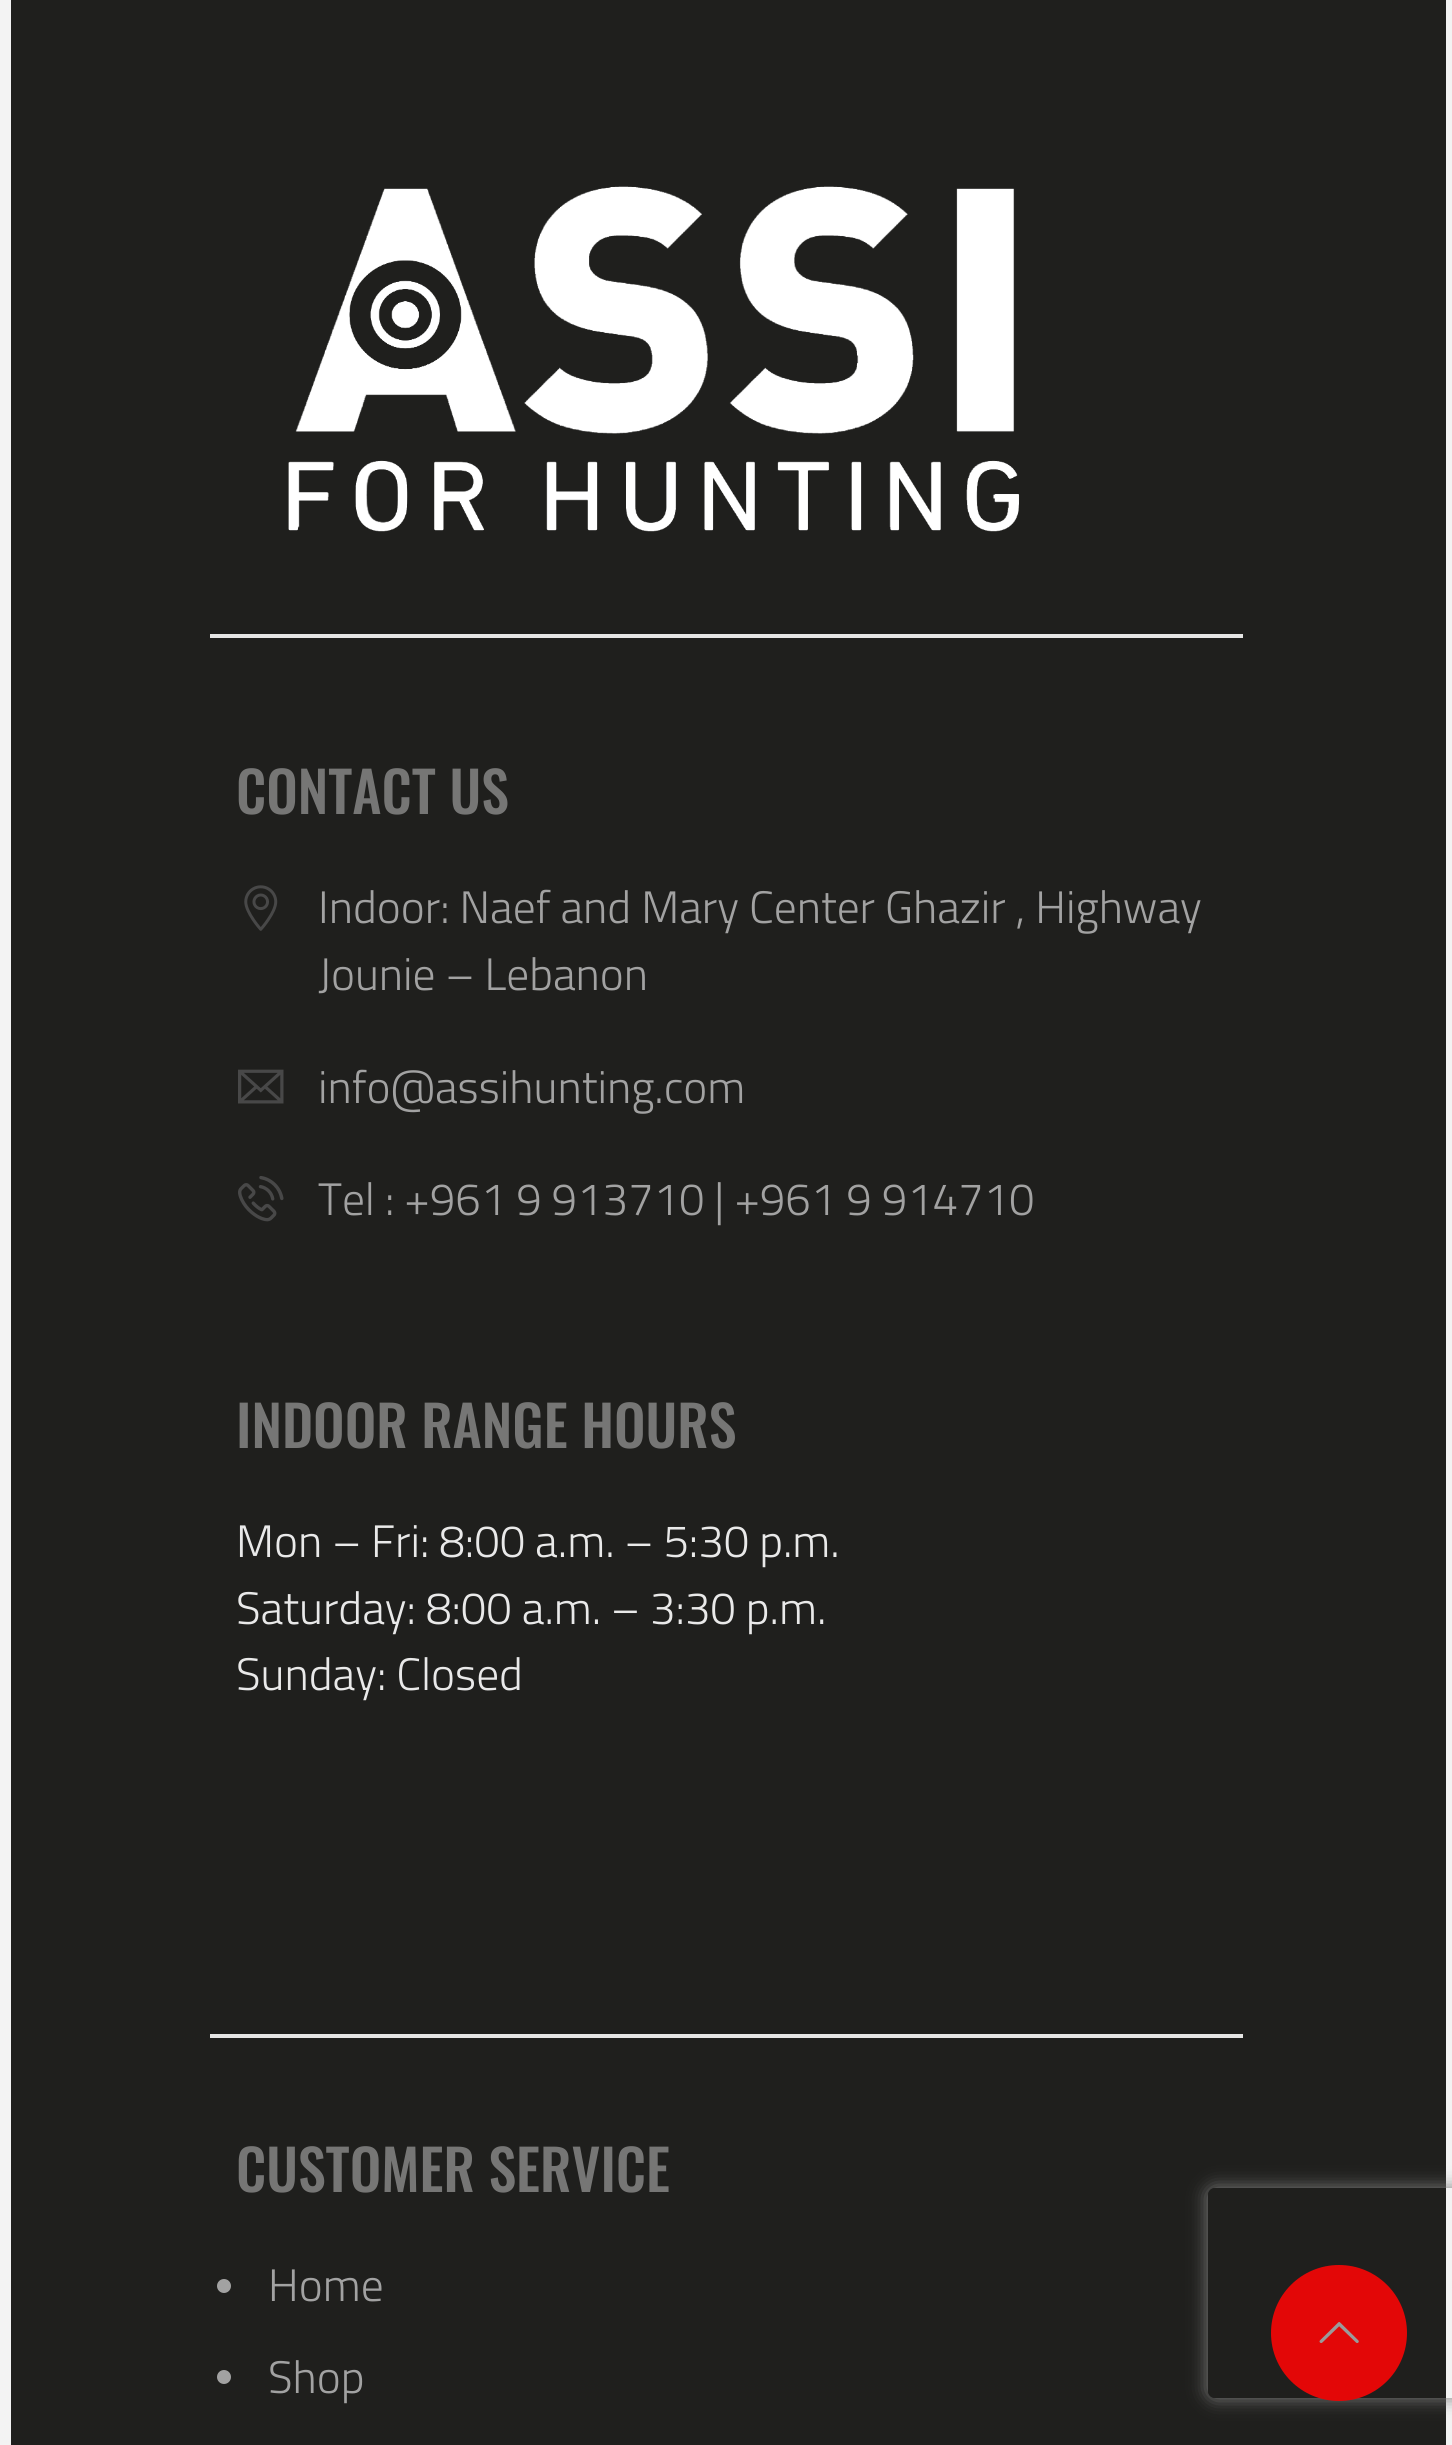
#include <cairo.h>
#include <math.h>
#include <stddef.h>

typedef struct { double x, y; const char *s; } line_t;

static void ink(cairo_t *ctx, unsigned color) {
    cairo_set_source_rgb(ctx, (color >> 16) / 255.0, (color >> 8 & 255) / 255.0, (color & 255) / 255.0);
}

static void round_path(cairo_t *ctx, double x, double y, double w, double h, double r) {
    cairo_new_sub_path(ctx);
    cairo_arc(ctx, x + w - r, y + h - r, r, 0, M_PI / 2);
    cairo_arc(ctx, x + r, y + h - r, r, M_PI / 2, M_PI);
    cairo_arc(ctx, x + r, y + r, r, M_PI, 1.5 * M_PI);
    cairo_arc(ctx, x + w - r, y + r, r, 1.5 * M_PI, 2 * M_PI);
    cairo_close_path(ctx);
}

static void blur_box(cairo_t *ctx, double x, double y, double w, double h, double r, double blur, double alpha) {
    cairo_push_group_with_content(ctx, CAIRO_CONTENT_ALPHA);
    cairo_set_operator(ctx, CAIRO_OPERATOR_SOURCE);
    for (int i = 15; i >= -15 && fmin(w, h) + blur * i / 3 > 0; i -= 2) {
        double e = blur * i / 6;
        cairo_set_source_rgba(ctx, 0, 0, 0, alpha * erfc((i - 1) / 8.5) / 2);
        round_path(ctx, x - e, y - e, w + 2 * e, h + 2 * e, fmax(0, fmin(r + e + blur * .6, fmin(w, h) / 2 + e)));
        cairo_fill(ctx);
    }
    cairo_pattern_t *soft = cairo_pop_group(ctx);
    cairo_mask(ctx, soft);
    cairo_pattern_destroy(soft);
}

static void paste(cairo_t *ctx, const char *path, double x, double y, double w, double h) {
    cairo_surface_t *image = cairo_image_surface_create_from_png(path);
    cairo_save(ctx);
    cairo_set_source_surface(ctx, image, x, y);
    cairo_rectangle(ctx, x, y, w, h);
    cairo_fill(ctx);
    cairo_restore(ctx);
    cairo_surface_destroy(image);
}

int main(void) {
    cairo_surface_t *surface = cairo_image_surface_create(CAIRO_FORMAT_RGB24, 1452, 2445);
    cairo_t *ctx = cairo_create(surface);
    cairo_font_options_t *options = cairo_font_options_create();
    cairo_font_options_set_hint_metrics(options, CAIRO_HINT_METRICS_OFF);
    cairo_font_options_set_hint_style(options, CAIRO_HINT_STYLE_NONE);
    cairo_set_font_options(ctx, options);
    cairo_set_miter_limit(ctx, 4);
    ink(ctx, 0xF3F3F3);
    cairo_paint(ctx);
    ink(ctx, 0x1F1F1D);
    cairo_rectangle(ctx, 11, 0, 1435, 2445);
    cairo_fill(ctx);
    paste(ctx, "media/1.png", 288, 186, 732, 346);
    ink(ctx, 0xE5E5E5);
    cairo_rectangle(ctx, 210, 634, 1033, 4);
    cairo_fill(ctx);
    cairo_select_font_face(ctx, "Oswald Medium", CAIRO_FONT_SLANT_NORMAL, CAIRO_FONT_WEIGHT_NORMAL);
    cairo_set_font_size(ctx, 56);
    ink(ctx, 0x767675);
    cairo_move_to(ctx, 236, 814);
    cairo_show_text(ctx, "CONTACT US");
    paste(ctx, "media/2.png", 244, 885, 34, 46);
    cairo_select_font_face(ctx, "Titillium Web Light", CAIRO_FONT_SLANT_NORMAL, CAIRO_FONT_WEIGHT_NORMAL);
    cairo_set_font_size(ctx, 45.5);
    ink(ctx, 0xA2A2A2);
    cairo_move_to(ctx, 318, 923);
    cairo_show_text(ctx, "Indoor: Naef and Mary Center Ghazir , Highway");
    cairo_move_to(ctx, 318, 990);
    cairo_show_text(ctx, "Jounie – Lebanon");
    paste(ctx, "media/3.png", 238, 1069, 46, 35);
    cairo_move_to(ctx, 318, 1103);
    cairo_show_text(ctx, "info@assihunting.com");
    paste(ctx, "media/4.png", 238, 1176, 46, 46);
    cairo_move_to(ctx, 318, 1215);
    cairo_show_text(ctx, "Tel : +961 9 913710 | +961 9 914710");
    cairo_select_font_face(ctx, "Oswald Medium", CAIRO_FONT_SLANT_NORMAL, CAIRO_FONT_WEIGHT_NORMAL);
    cairo_set_font_size(ctx, 56);
    ink(ctx, 0x767675);
    cairo_move_to(ctx, 236, 1448);
    cairo_show_text(ctx, "INDOOR RANGE HOURS");
    cairo_select_font_face(ctx, "Titillium Web Light", CAIRO_FONT_SLANT_NORMAL, CAIRO_FONT_WEIGHT_NORMAL);
    cairo_set_font_size(ctx, 45.5);
    ink(ctx, 0xE9E9E9);
    {
        static const line_t items[] = {
            {236, 1557, "Mon – Fri: 8:00 a.m. – 5:30 p.m."},
            {236, 1624, "Saturday: 8:00 a.m. – 3:30 p.m."},
            {236, 1690, "Sunday: Closed"},
        };
        for (size_t i = 0; i < sizeof items / sizeof *items; i++) {
            cairo_move_to(ctx, items[i].x, items[i].y);
            cairo_show_text(ctx, items[i].s);
        }
    }
    ink(ctx, 0xE5E5E5);
    cairo_rectangle(ctx, 210, 2034, 1033, 4);
    cairo_fill(ctx);
    cairo_select_font_face(ctx, "Oswald Medium", CAIRO_FONT_SLANT_NORMAL, CAIRO_FONT_WEIGHT_NORMAL);
    cairo_set_font_size(ctx, 56);
    ink(ctx, 0x767675);
    cairo_move_to(ctx, 236, 2192);
    cairo_show_text(ctx, "CUSTOMER SERVICE");
    ink(ctx, 0xA2A2A2);
    cairo_new_path(ctx);
    cairo_arc(ctx, 224, 2286, 7, 0, 2 * M_PI);
    cairo_fill(ctx);
    cairo_select_font_face(ctx, "Titillium Web Light", CAIRO_FONT_SLANT_NORMAL, CAIRO_FONT_WEIGHT_NORMAL);
    cairo_set_font_size(ctx, 45.5);
    cairo_move_to(ctx, 268, 2301);
    cairo_show_text(ctx, "Home");
    cairo_new_path(ctx);
    cairo_arc(ctx, 224, 2377, 7, 0, 2 * M_PI);
    cairo_fill(ctx);
    cairo_move_to(ctx, 268, 2393);
    cairo_show_text(ctx, "Shop");
    cairo_save(ctx);
    cairo_set_fill_rule(ctx, CAIRO_FILL_RULE_EVEN_ODD);
    cairo_new_path(ctx);
    cairo_move_to(ctx, 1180, 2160);
    cairo_line_to(ctx, 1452, 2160);
    cairo_line_to(ctx, 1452, 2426);
    cairo_line_to(ctx, 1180, 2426);
    cairo_close_path(ctx);
    cairo_move_to(ctx, 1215, 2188);
    cairo_line_to(ctx, 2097, 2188);
    cairo_curve_to(ctx, 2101, 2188, 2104, 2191, 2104, 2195);
    cairo_line_to(ctx, 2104, 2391);
    cairo_curve_to(ctx, 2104, 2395, 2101, 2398, 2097, 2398);
    cairo_line_to(ctx, 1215, 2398);
    cairo_curve_to(ctx, 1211, 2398, 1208, 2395, 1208, 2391);
    cairo_line_to(ctx, 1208, 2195);
    cairo_curve_to(ctx, 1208, 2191, 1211, 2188, 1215, 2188);
    cairo_close_path(ctx);
    cairo_clip(ctx);
    ink(ctx, 0x808080);
    blur_box(ctx, 1208, 2188, 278, 210, 7, 9, 1);
    cairo_restore(ctx);
    ink(ctx, 0xE30707);
    cairo_arc(ctx, 1339, 2333, 68, 0, 2 * M_PI);
    cairo_fill(ctx);
    paste(ctx, "media/5.png", 1319, 2322, 40, 21);
    cairo_surface_write_to_png(surface, "image.png");
    cairo_font_options_destroy(options);
    cairo_destroy(ctx);
    cairo_surface_destroy(surface);
    return 0;
}
